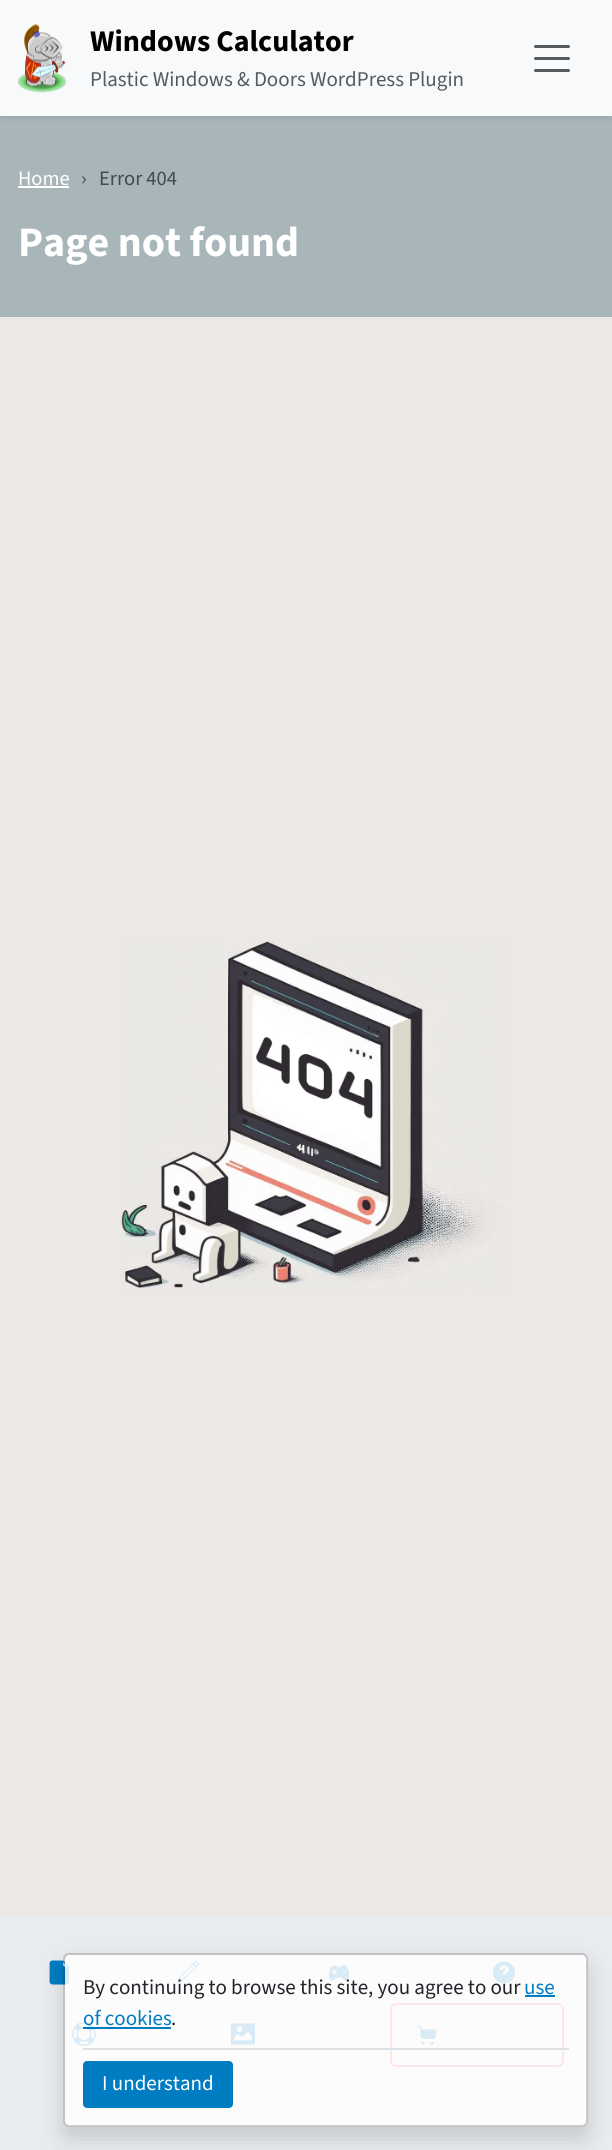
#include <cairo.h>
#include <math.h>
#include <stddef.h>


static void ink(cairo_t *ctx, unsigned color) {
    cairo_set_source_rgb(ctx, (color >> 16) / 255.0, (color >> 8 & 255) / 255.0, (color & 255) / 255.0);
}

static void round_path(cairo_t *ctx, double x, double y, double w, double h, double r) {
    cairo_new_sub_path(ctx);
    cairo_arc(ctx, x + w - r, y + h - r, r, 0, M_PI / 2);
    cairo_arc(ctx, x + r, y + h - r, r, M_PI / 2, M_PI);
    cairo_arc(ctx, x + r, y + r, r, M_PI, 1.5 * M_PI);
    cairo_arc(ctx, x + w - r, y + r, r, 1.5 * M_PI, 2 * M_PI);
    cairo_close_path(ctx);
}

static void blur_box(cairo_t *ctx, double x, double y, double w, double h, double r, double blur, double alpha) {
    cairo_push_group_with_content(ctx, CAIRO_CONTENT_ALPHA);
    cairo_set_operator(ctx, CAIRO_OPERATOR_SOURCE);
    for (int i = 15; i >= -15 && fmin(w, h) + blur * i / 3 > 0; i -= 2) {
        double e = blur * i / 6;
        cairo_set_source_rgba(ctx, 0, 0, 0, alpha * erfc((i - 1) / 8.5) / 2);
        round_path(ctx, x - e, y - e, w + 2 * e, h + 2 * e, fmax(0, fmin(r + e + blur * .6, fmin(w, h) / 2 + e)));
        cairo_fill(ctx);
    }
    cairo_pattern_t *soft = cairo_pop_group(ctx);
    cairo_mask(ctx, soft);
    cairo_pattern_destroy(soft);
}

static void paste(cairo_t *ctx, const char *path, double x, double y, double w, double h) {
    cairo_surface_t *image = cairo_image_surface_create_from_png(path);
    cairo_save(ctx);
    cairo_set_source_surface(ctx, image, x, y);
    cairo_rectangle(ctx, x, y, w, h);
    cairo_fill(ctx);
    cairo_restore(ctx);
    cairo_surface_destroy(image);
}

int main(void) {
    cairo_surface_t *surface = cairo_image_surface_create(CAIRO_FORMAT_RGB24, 612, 2150);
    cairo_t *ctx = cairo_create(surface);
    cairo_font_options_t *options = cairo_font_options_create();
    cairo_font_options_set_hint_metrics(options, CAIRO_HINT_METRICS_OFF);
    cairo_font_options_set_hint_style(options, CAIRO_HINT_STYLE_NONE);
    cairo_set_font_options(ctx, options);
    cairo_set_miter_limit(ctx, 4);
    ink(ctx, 0xA8B5B9);
    cairo_paint(ctx);
    ink(ctx, 0x000000);
    blur_box(ctx, 0, 3, 612, 116, 0, 3, 0.07);
    ink(ctx, 0xF8F9FA);
    cairo_rectangle(ctx, 0, 0, 612, 116);
    cairo_fill(ctx);
    paste(ctx, "media/1.png", 18, 24, 48, 69);
    cairo_select_font_face(ctx, "Source Sans 3", CAIRO_FONT_SLANT_NORMAL, CAIRO_FONT_WEIGHT_BOLD);
    cairo_set_font_size(ctx, 30);
    ink(ctx, 0x000000);
    cairo_move_to(ctx, 90, 51);
    cairo_show_text(ctx, "Windows Calculator");
    cairo_select_font_face(ctx, "Source Sans 3", CAIRO_FONT_SLANT_NORMAL, CAIRO_FONT_WEIGHT_NORMAL);
    cairo_set_font_size(ctx, 21);
    ink(ctx, 0x575A5D);
    cairo_move_to(ctx, 90, 86);
    cairo_show_text(ctx, "Plastic Windows & Doors WordPress Plugin");
    cairo_new_path(ctx);
    cairo_move_to(ctx, 535.5, 46.5);
    cairo_line_to(ctx, 568.5, 46.5);
    cairo_move_to(ctx, 535.5, 58.5);
    cairo_line_to(ctx, 568.5, 58.5);
    cairo_move_to(ctx, 535.5, 70.5);
    cairo_line_to(ctx, 568.5, 70.5);
    cairo_set_line_width(ctx, 3);
    cairo_set_line_cap(ctx, CAIRO_LINE_CAP_ROUND);
    cairo_stroke(ctx);
    cairo_set_font_size(ctx, 20.5);
    ink(ctx, 0xFFFFFF);
    cairo_move_to(ctx, 18, 185);
    cairo_show_text(ctx, "Home");
    cairo_rectangle(ctx, 18, 186, 51, 2);
    cairo_fill(ctx);
    ink(ctx, 0x43494D);
    cairo_move_to(ctx, 81, 185);
    cairo_show_text(ctx, "›");
    cairo_move_to(ctx, 99, 185);
    cairo_show_text(ctx, "Error 404");
    cairo_select_font_face(ctx, "Source Sans 3", CAIRO_FONT_SLANT_NORMAL, CAIRO_FONT_WEIGHT_BOLD);
    cairo_set_font_size(ctx, 42);
    ink(ctx, 0xFFFFFF);
    cairo_move_to(ctx, 18, 256);
    cairo_show_text(ctx, "Page not found");
    ink(ctx, 0xECE8E5);
    cairo_rectangle(ctx, 0, 317, 612, 1600);
    cairo_fill(ctx);
    paste(ctx, "media/2.png", 121, 941, 384, 348);
    ink(ctx, 0xE9ECEF);
    cairo_rectangle(ctx, 0, 1917, 612, 233);
    cairo_fill(ctx);
    paste(ctx, "media/3.png", 49, 1960, 21, 25);
    paste(ctx, "media/4.png", 176, 1961, 23, 23);
    paste(ctx, "media/5.png", 329, 1965, 20, 16);
    paste(ctx, "media/6.png", 493, 1961, 22, 23);
    paste(ctx, "media/7.png", 72, 2022, 24, 24);
    paste(ctx, "media/8.png", 231, 2023, 24, 22);
    round_path(ctx, 391, 2004, 172, 62, 5);
    ink(ctx, 0xFF5B5B);
    cairo_set_line_width(ctx, 2);
    cairo_set_line_cap(ctx, CAIRO_LINE_CAP_BUTT);
    cairo_stroke(ctx);
    paste(ctx, "media/9.png", 417, 2025, 20, 20);
    cairo_save(ctx);
    cairo_set_fill_rule(ctx, CAIRO_FILL_RULE_EVEN_ODD);
    cairo_new_path(ctx);
    cairo_move_to(ctx, 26, 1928);
    cairo_line_to(ctx, 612, 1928);
    cairo_line_to(ctx, 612, 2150);
    cairo_line_to(ctx, 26, 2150);
    cairo_close_path(ctx);
    cairo_move_to(ctx, 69, 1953);
    cairo_line_to(ctx, 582, 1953);
    cairo_curve_to(ctx, 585.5, 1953, 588, 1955.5, 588, 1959);
    cairo_line_to(ctx, 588, 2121);
    cairo_curve_to(ctx, 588, 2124.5, 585.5, 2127, 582, 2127);
    cairo_line_to(ctx, 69, 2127);
    cairo_curve_to(ctx, 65.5, 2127, 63, 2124.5, 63, 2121);
    cairo_line_to(ctx, 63, 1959);
    cairo_curve_to(ctx, 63, 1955.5, 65.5, 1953, 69, 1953);
    cairo_close_path(ctx);
    cairo_clip(ctx);
    ink(ctx, 0x000000);
    blur_box(ctx, 63, 1965, 525, 174, 6, 12, 0.15);
    cairo_restore(ctx);
    cairo_set_source_rgba(ctx, 1, 1, 1, 0.85);
    round_path(ctx, 65, 1955, 522, 171, 5);
    cairo_fill(ctx);
    round_path(ctx, 64, 1954, 523, 172, 5);
    cairo_set_source_rgba(ctx, 0, 0, 0, 0.18);
    cairo_stroke(ctx);
    cairo_select_font_face(ctx, "Source Sans 3", CAIRO_FONT_SLANT_NORMAL, CAIRO_FONT_WEIGHT_NORMAL);
    cairo_set_font_size(ctx, 21);
    ink(ctx, 0x212529);
    cairo_move_to(ctx, 83, 1994);
    cairo_show_text(ctx, "By continuing to browse this site, you agree to our");
    ink(ctx, 0x007CC2);
    cairo_move_to(ctx, 524, 1994);
    cairo_show_text(ctx, "use");
    cairo_rectangle(ctx, 525, 1995, 30, 2);
    cairo_fill(ctx);
    cairo_move_to(ctx, 83, 2025);
    cairo_show_text(ctx, "of cookies");
    cairo_rectangle(ctx, 83, 2027, 88, 2);
    cairo_fill(ctx);
    ink(ctx, 0x212529);
    cairo_move_to(ctx, 171, 2025);
    cairo_show_text(ctx, ".");
    ink(ctx, 0xDEE2E6);
    cairo_rectangle(ctx, 83, 2048, 486, 2);
    cairo_fill(ctx);
    ink(ctx, 0x007CC2);
    round_path(ctx, 84, 2062, 148, 45, 3);
    cairo_fill_preserve(ctx);
    cairo_stroke(ctx);
    ink(ctx, 0xFFFFFF);
    cairo_move_to(ctx, 102, 2090);
    cairo_show_text(ctx, "I understand");
    cairo_surface_write_to_png(surface, "image.png");
    cairo_font_options_destroy(options);
    cairo_destroy(ctx);
    cairo_surface_destroy(surface);
    return 0;
}
